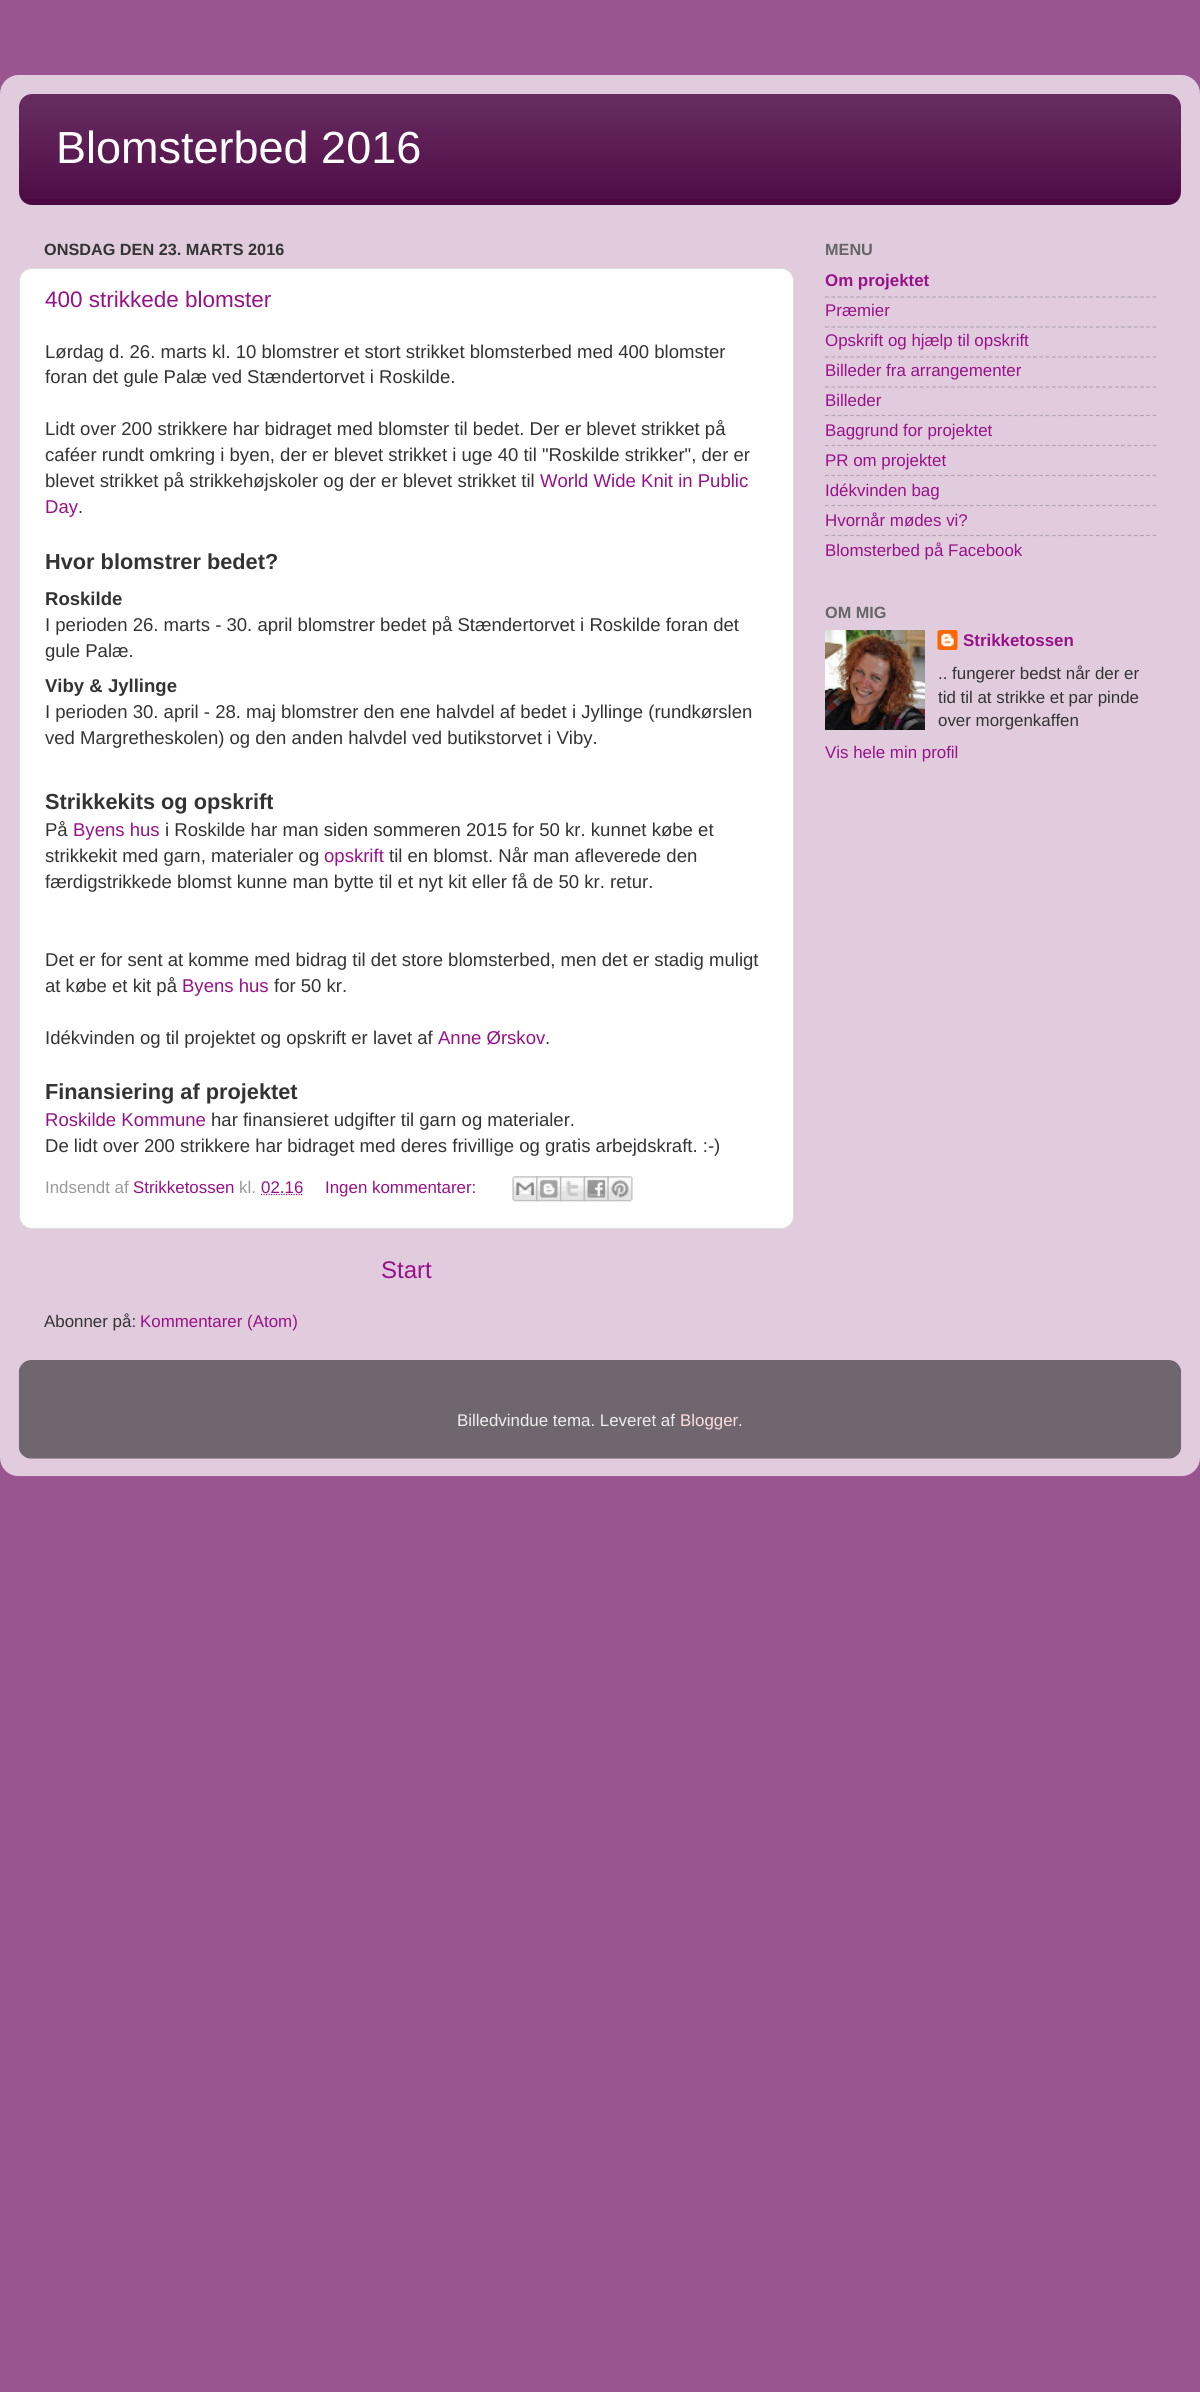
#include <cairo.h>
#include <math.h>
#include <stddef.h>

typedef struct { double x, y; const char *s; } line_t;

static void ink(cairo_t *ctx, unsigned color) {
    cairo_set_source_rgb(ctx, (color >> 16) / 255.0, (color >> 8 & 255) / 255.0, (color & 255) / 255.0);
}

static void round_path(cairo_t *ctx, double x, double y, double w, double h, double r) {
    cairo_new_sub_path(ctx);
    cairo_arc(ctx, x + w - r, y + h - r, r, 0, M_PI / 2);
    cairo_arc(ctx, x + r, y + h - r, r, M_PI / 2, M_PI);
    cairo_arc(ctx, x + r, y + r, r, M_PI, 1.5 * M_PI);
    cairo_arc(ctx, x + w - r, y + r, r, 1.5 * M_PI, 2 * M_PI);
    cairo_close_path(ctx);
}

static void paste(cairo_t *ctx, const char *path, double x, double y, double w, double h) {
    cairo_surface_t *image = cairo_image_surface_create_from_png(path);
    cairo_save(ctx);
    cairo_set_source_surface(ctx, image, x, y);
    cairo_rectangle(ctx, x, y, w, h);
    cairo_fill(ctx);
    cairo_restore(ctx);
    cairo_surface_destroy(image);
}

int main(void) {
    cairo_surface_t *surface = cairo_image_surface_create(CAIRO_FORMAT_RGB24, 1200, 2392);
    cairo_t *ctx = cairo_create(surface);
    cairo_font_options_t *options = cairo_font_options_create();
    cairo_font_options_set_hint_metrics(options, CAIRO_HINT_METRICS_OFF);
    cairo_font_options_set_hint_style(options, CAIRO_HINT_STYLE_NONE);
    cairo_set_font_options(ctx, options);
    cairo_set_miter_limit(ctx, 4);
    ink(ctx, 0x995590);
    cairo_paint(ctx);
    paste(ctx, "media/1.png", 0, 75, 1200, 1402);
    ink(ctx, 0x4C0844);
    round_path(ctx, 19, 94, 1162, 111, 13);
    cairo_fill(ctx);
    paste(ctx, "media/2.png", 19, 94, 1162, 105);
    cairo_select_font_face(ctx, "Liberation Sans", CAIRO_FONT_SLANT_NORMAL, CAIRO_FONT_WEIGHT_NORMAL);
    cairo_set_font_size(ctx, 45);
    ink(ctx, 0xFFFFFF);
    cairo_move_to(ctx, 56, 163);
    cairo_show_text(ctx, "Blomsterbed 2016");
    cairo_select_font_face(ctx, "Liberation Sans", CAIRO_FONT_SLANT_NORMAL, CAIRO_FONT_WEIGHT_BOLD);
    cairo_set_font_size(ctx, 16.25);
    ink(ctx, 0x333333);
    cairo_move_to(ctx, 44, 255);
    cairo_show_text(ctx, "ONSDAG DEN 23. MARTS 2016");
    ink(ctx, 0xFFFFFF);
    round_path(ctx, 19.5, 268.5, 774, 960, 12.5);
    cairo_fill_preserve(ctx);
    ink(ctx, 0xDDDDDD);
    cairo_set_line_width(ctx, 1);
    cairo_stroke(ctx);
    cairo_select_font_face(ctx, "Liberation Sans", CAIRO_FONT_SLANT_NORMAL, CAIRO_FONT_WEIGHT_NORMAL);
    cairo_set_font_size(ctx, 22.5);
    ink(ctx, 0x991188);
    cairo_move_to(ctx, 45, 307);
    cairo_show_text(ctx, "400 strikkede blomster");
    cairo_set_font_size(ctx, 18.55);
    ink(ctx, 0x333333);
    {
        static const line_t items[] = {
            {45, 358, "Lørdag d. 26. marts kl. 10 blomstrer et stort strikket blomsterbed med 400 blomster"},
            {45, 383, "foran det gule Palæ ved Stændertorvet i Roskilde."},
            {45, 435, "Lidt over 200 strikkere har bidraget med blomster til bedet. Der er blevet strikket på"},
            {45, 461, "caféer rundt omkring i byen, der er blevet strikket i uge 40 til \"Roskilde strikker\", der er"},
            {45, 487, "blevet strikket på strikkehøjskoler og der er blevet strikket til"},
        };
        for (size_t i = 0; i < sizeof items / sizeof *items; i++) {
            cairo_move_to(ctx, items[i].x, items[i].y);
            cairo_show_text(ctx, items[i].s);
        }
    }
    ink(ctx, 0x991188);
    cairo_move_to(ctx, 540, 487);
    cairo_show_text(ctx, "World Wide Knit in Public");
    cairo_move_to(ctx, 45, 513);
    cairo_show_text(ctx, "Day");
    ink(ctx, 0x333333);
    cairo_move_to(ctx, 78, 513);
    cairo_show_text(ctx, ".");
    cairo_select_font_face(ctx, "Liberation Sans", CAIRO_FONT_SLANT_NORMAL, CAIRO_FONT_WEIGHT_BOLD);
    cairo_set_font_size(ctx, 21.75);
    cairo_move_to(ctx, 45, 569);
    cairo_show_text(ctx, "Hvor blomstrer bedet?");
    cairo_set_font_size(ctx, 18.55);
    cairo_move_to(ctx, 45, 605);
    cairo_show_text(ctx, "Roskilde");
    cairo_select_font_face(ctx, "Liberation Sans", CAIRO_FONT_SLANT_NORMAL, CAIRO_FONT_WEIGHT_NORMAL);
    cairo_move_to(ctx, 45, 631);
    cairo_show_text(ctx, "I perioden 26. marts - 30. april blomstrer bedet på Stændertorvet i Roskilde foran det");
    cairo_move_to(ctx, 45, 657);
    cairo_show_text(ctx, "gule Palæ.");
    cairo_select_font_face(ctx, "Liberation Sans", CAIRO_FONT_SLANT_NORMAL, CAIRO_FONT_WEIGHT_BOLD);
    cairo_move_to(ctx, 45, 692);
    cairo_show_text(ctx, "Viby & Jyllinge");
    cairo_select_font_face(ctx, "Liberation Sans", CAIRO_FONT_SLANT_NORMAL, CAIRO_FONT_WEIGHT_NORMAL);
    cairo_move_to(ctx, 45, 718);
    cairo_show_text(ctx, "I perioden 30. april - 28. maj blomstrer den ene halvdel af bedet i Jyllinge (rundkørslen");
    cairo_move_to(ctx, 45, 744);
    cairo_show_text(ctx, "ved Margretheskolen) og den anden halvdel ved butikstorvet i Viby.");
    cairo_select_font_face(ctx, "Liberation Sans", CAIRO_FONT_SLANT_NORMAL, CAIRO_FONT_WEIGHT_BOLD);
    cairo_set_font_size(ctx, 21.75);
    cairo_move_to(ctx, 45, 809);
    cairo_show_text(ctx, "Strikkekits og opskrift");
    cairo_select_font_face(ctx, "Liberation Sans", CAIRO_FONT_SLANT_NORMAL, CAIRO_FONT_WEIGHT_NORMAL);
    cairo_set_font_size(ctx, 18.55);
    cairo_move_to(ctx, 45, 836);
    cairo_show_text(ctx, "På");
    ink(ctx, 0x991188);
    cairo_move_to(ctx, 73, 836);
    cairo_show_text(ctx, "Byens hus");
    ink(ctx, 0x333333);
    cairo_move_to(ctx, 165, 836);
    cairo_show_text(ctx, "i Roskilde har man siden sommeren 2015 for 50 kr. kunnet købe et");
    cairo_move_to(ctx, 45, 862);
    cairo_show_text(ctx, "strikkekit med garn, materialer og");
    ink(ctx, 0x991188);
    cairo_move_to(ctx, 324, 862);
    cairo_show_text(ctx, "opskrift");
    ink(ctx, 0x333333);
    {
        static const line_t items[] = {
            {389, 862, "til en blomst. Når man afleverede den"},
            {45, 888, "færdigstrikkede blomst kunne man bytte til et nyt kit eller få de 50 kr. retur."},
            {45, 966, "Det er for sent at komme med bidrag til det store blomsterbed, men det er stadig muligt"},
            {45, 992, "at købe et kit på"},
        };
        for (size_t i = 0; i < sizeof items / sizeof *items; i++) {
            cairo_move_to(ctx, items[i].x, items[i].y);
            cairo_show_text(ctx, items[i].s);
        }
    }
    ink(ctx, 0x991188);
    cairo_move_to(ctx, 182, 992);
    cairo_show_text(ctx, "Byens hus");
    ink(ctx, 0x333333);
    cairo_move_to(ctx, 274, 992);
    cairo_show_text(ctx, "for 50 kr.");
    cairo_move_to(ctx, 45, 1044);
    cairo_show_text(ctx, "Idékvinden og til projektet og opskrift er lavet af");
    ink(ctx, 0x991188);
    cairo_move_to(ctx, 438, 1044);
    cairo_show_text(ctx, "Anne Ørskov");
    ink(ctx, 0x333333);
    cairo_move_to(ctx, 545, 1044);
    cairo_show_text(ctx, ".");
    cairo_select_font_face(ctx, "Liberation Sans", CAIRO_FONT_SLANT_NORMAL, CAIRO_FONT_WEIGHT_BOLD);
    cairo_set_font_size(ctx, 21.75);
    cairo_move_to(ctx, 45, 1099);
    cairo_show_text(ctx, "Finansiering af projektet");
    cairo_select_font_face(ctx, "Liberation Sans", CAIRO_FONT_SLANT_NORMAL, CAIRO_FONT_WEIGHT_NORMAL);
    cairo_set_font_size(ctx, 18.55);
    ink(ctx, 0x991188);
    cairo_move_to(ctx, 45, 1126);
    cairo_show_text(ctx, "Roskilde Kommune");
    ink(ctx, 0x333333);
    cairo_move_to(ctx, 211, 1126);
    cairo_show_text(ctx, "har finansieret udgifter til garn og materialer.");
    cairo_move_to(ctx, 45, 1152);
    cairo_show_text(ctx, "De lidt over 200 strikkere har bidraget med deres frivillige og gratis arbejdskraft. :-)");
    cairo_set_font_size(ctx, 16.9);
    ink(ctx, 0x999999);
    cairo_move_to(ctx, 45, 1193);
    cairo_show_text(ctx, "Indsendt af");
    ink(ctx, 0x991188);
    cairo_move_to(ctx, 133, 1193);
    cairo_show_text(ctx, "Strikketossen");
    ink(ctx, 0x999999);
    cairo_move_to(ctx, 239, 1193);
    cairo_show_text(ctx, "kl.");
    cairo_new_path(ctx);
    cairo_move_to(ctx, 261, 1194.5);
    cairo_line_to(ctx, 303, 1194.5);
    ink(ctx, 0x991188);
    cairo_set_line_width(ctx, 1.2);
    cairo_set_dash(ctx, (double[]){1.25, 1.25}, 2, 0);
    cairo_stroke(ctx);
    cairo_move_to(ctx, 261, 1193);
    cairo_show_text(ctx, "02.16");
    cairo_move_to(ctx, 325, 1193);
    cairo_show_text(ctx, "Ingen kommentarer:");
    paste(ctx, "media/3.png", 512, 1176, 26, 26);
    paste(ctx, "media/4.png", 536, 1176, 26, 26);
    paste(ctx, "media/5.png", 560, 1176, 25, 26);
    paste(ctx, "media/6.png", 583, 1176, 26, 26);
    paste(ctx, "media/7.png", 607, 1176, 26, 26);
    cairo_set_font_size(ctx, 24);
    cairo_move_to(ctx, 381, 1278);
    cairo_show_text(ctx, "Start");
    cairo_set_font_size(ctx, 16.9);
    ink(ctx, 0x333333);
    cairo_move_to(ctx, 44, 1327);
    cairo_show_text(ctx, "Abonner på:");
    ink(ctx, 0x991188);
    cairo_move_to(ctx, 140, 1327);
    cairo_show_text(ctx, "Kommentarer (Atom)");
    cairo_select_font_face(ctx, "Liberation Sans", CAIRO_FONT_SLANT_NORMAL, CAIRO_FONT_WEIGHT_BOLD);
    cairo_set_font_size(ctx, 16.25);
    ink(ctx, 0x666666);
    cairo_move_to(ctx, 825, 255);
    cairo_show_text(ctx, "MENU");
    cairo_set_font_size(ctx, 16.9);
    ink(ctx, 0x991188);
    cairo_move_to(ctx, 825, 286);
    cairo_show_text(ctx, "Om projektet");
    cairo_new_path(ctx);
    cairo_move_to(ctx, 825, 297);
    cairo_line_to(ctx, 1156, 297);
    ink(ctx, 0xB0A6AF);
    cairo_set_dash(ctx, (double[]){3.75, 2.55}, 2, 0);
    cairo_stroke(ctx);
    cairo_select_font_face(ctx, "Liberation Sans", CAIRO_FONT_SLANT_NORMAL, CAIRO_FONT_WEIGHT_NORMAL);
    ink(ctx, 0x991188);
    cairo_move_to(ctx, 825, 316);
    cairo_show_text(ctx, "Præmier");
    cairo_new_path(ctx);
    cairo_move_to(ctx, 825, 327);
    cairo_line_to(ctx, 1156, 327);
    ink(ctx, 0xB0A6AF);
    cairo_stroke(ctx);
    ink(ctx, 0x991188);
    cairo_move_to(ctx, 825, 346);
    cairo_show_text(ctx, "Opskrift og hjælp til opskrift");
    cairo_new_path(ctx);
    cairo_move_to(ctx, 825, 357);
    cairo_line_to(ctx, 1156, 357);
    ink(ctx, 0xB0A6AF);
    cairo_stroke(ctx);
    ink(ctx, 0x991188);
    cairo_move_to(ctx, 825, 376);
    cairo_show_text(ctx, "Billeder fra arrangementer");
    cairo_new_path(ctx);
    cairo_move_to(ctx, 825, 387);
    cairo_line_to(ctx, 1156, 387);
    ink(ctx, 0xB0A6AF);
    cairo_stroke(ctx);
    ink(ctx, 0x991188);
    cairo_move_to(ctx, 825, 406);
    cairo_show_text(ctx, "Billeder");
    cairo_new_path(ctx);
    cairo_move_to(ctx, 825, 415.5);
    cairo_line_to(ctx, 1156, 415.5);
    ink(ctx, 0xB0A6AF);
    cairo_stroke(ctx);
    ink(ctx, 0x991188);
    cairo_move_to(ctx, 825, 436);
    cairo_show_text(ctx, "Baggrund for projektet");
    cairo_new_path(ctx);
    cairo_move_to(ctx, 825, 445.5);
    cairo_line_to(ctx, 1156, 445.5);
    ink(ctx, 0xB0A6AF);
    cairo_stroke(ctx);
    ink(ctx, 0x991188);
    cairo_move_to(ctx, 825, 466);
    cairo_show_text(ctx, "PR om projektet");
    cairo_new_path(ctx);
    cairo_move_to(ctx, 825, 475.5);
    cairo_line_to(ctx, 1156, 475.5);
    ink(ctx, 0xB0A6AF);
    cairo_stroke(ctx);
    ink(ctx, 0x991188);
    cairo_move_to(ctx, 825, 496);
    cairo_show_text(ctx, "Idékvinden bag");
    cairo_new_path(ctx);
    cairo_move_to(ctx, 825, 505.5);
    cairo_line_to(ctx, 1156, 505.5);
    ink(ctx, 0xB0A6AF);
    cairo_stroke(ctx);
    ink(ctx, 0x991188);
    cairo_move_to(ctx, 825, 526);
    cairo_show_text(ctx, "Hvornår mødes vi?");
    cairo_new_path(ctx);
    cairo_move_to(ctx, 825, 535.5);
    cairo_line_to(ctx, 1156, 535.5);
    ink(ctx, 0xB0A6AF);
    cairo_stroke(ctx);
    ink(ctx, 0x991188);
    cairo_move_to(ctx, 825, 556);
    cairo_show_text(ctx, "Blomsterbed på Facebook");
    cairo_select_font_face(ctx, "Liberation Sans", CAIRO_FONT_SLANT_NORMAL, CAIRO_FONT_WEIGHT_BOLD);
    cairo_set_font_size(ctx, 16.25);
    ink(ctx, 0x666666);
    cairo_move_to(ctx, 825, 618);
    cairo_show_text(ctx, "OM MIG");
    paste(ctx, "media/8.png", 825, 630, 100, 100);
    paste(ctx, "media/9.png", 937, 630, 21, 20);
    cairo_set_font_size(ctx, 16.9);
    ink(ctx, 0x991188);
    cairo_move_to(ctx, 963, 646);
    cairo_show_text(ctx, "Strikketossen");
    cairo_select_font_face(ctx, "Liberation Sans", CAIRO_FONT_SLANT_NORMAL, CAIRO_FONT_WEIGHT_NORMAL);
    ink(ctx, 0x333333);
    {
        static const line_t items[] = {
            {938, 679, ".. fungerer bedst når der er"},
            {938, 703, "tid til at strikke et par pinde"},
            {938, 726, "over morgenkaffen"},
        };
        for (size_t i = 0; i < sizeof items / sizeof *items; i++) {
            cairo_move_to(ctx, items[i].x, items[i].y);
            cairo_show_text(ctx, items[i].s);
        }
    }
    ink(ctx, 0x991188);
    cairo_move_to(ctx, 825, 758);
    cairo_show_text(ctx, "Vis hele min profil");
    paste(ctx, "media/10.png", 18, 1360, 1164, 99);
    ink(ctx, 0xEEEEEE);
    cairo_move_to(ctx, 457, 1426);
    cairo_show_text(ctx, "Billedvindue tema. Leveret af");
    ink(ctx, 0xFFDDDD);
    cairo_move_to(ctx, 680, 1426);
    cairo_show_text(ctx, "Blogger");
    ink(ctx, 0xEEEEEE);
    cairo_move_to(ctx, 738, 1426);
    cairo_show_text(ctx, ".");
    cairo_surface_write_to_png(surface, "image.png");
    cairo_font_options_destroy(options);
    cairo_destroy(ctx);
    cairo_surface_destroy(surface);
    return 0;
}
